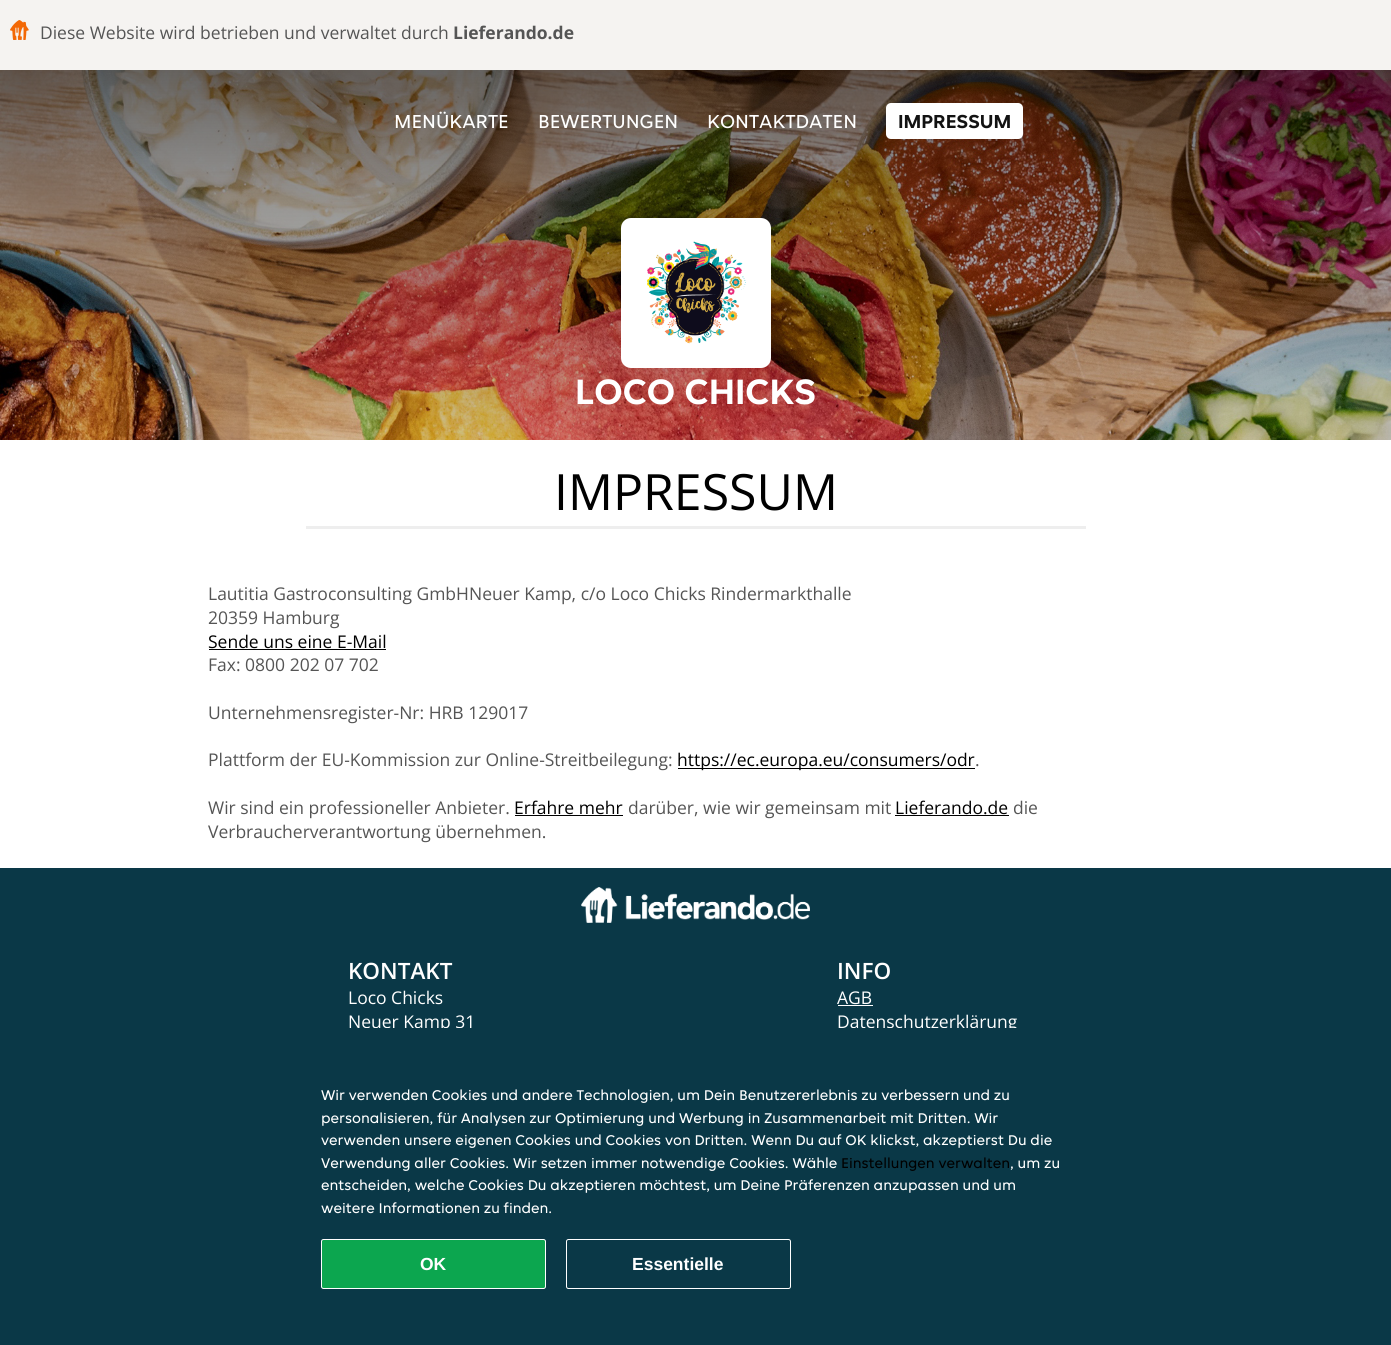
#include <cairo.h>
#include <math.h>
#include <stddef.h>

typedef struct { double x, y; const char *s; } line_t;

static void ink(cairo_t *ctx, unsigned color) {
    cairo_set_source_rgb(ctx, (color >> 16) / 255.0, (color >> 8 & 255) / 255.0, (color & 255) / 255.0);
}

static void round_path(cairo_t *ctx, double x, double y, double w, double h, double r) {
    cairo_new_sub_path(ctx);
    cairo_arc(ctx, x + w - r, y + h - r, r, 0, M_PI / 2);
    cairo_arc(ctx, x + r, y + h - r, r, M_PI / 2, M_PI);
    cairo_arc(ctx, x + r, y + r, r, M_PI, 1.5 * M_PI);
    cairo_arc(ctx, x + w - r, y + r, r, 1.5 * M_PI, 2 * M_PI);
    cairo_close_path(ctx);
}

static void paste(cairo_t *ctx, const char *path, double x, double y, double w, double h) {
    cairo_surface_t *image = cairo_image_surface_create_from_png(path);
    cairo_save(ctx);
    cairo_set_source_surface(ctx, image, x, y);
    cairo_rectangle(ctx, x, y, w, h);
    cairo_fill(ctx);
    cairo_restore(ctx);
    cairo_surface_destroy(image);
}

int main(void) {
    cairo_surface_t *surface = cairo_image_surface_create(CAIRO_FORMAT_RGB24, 1391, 1345);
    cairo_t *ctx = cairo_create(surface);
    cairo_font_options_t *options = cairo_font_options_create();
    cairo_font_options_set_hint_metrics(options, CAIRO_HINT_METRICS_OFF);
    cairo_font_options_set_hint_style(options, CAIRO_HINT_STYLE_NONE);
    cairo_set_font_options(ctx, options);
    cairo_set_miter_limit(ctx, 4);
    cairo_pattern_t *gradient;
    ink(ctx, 0xFFFFFF);
    cairo_paint(ctx);
    ink(ctx, 0xF5F3F1);
    cairo_rectangle(ctx, 0, 0, 1391, 70);
    cairo_fill(ctx);
    paste(ctx, "media/1.png", 10, 20, 19, 20);
    cairo_select_font_face(ctx, "Open Sans", CAIRO_FONT_SLANT_NORMAL, CAIRO_FONT_WEIGHT_NORMAL);
    cairo_set_font_size(ctx, 17.5);
    ink(ctx, 0x555555);
    cairo_move_to(ctx, 40, 39);
    cairo_show_text(ctx, "Diese Website wird betrieben und verwaltet durch");
    cairo_select_font_face(ctx, "Open Sans", CAIRO_FONT_SLANT_NORMAL, CAIRO_FONT_WEIGHT_BOLD);
    cairo_move_to(ctx, 453, 39);
    cairo_show_text(ctx, "Lieferando.de");
    paste(ctx, "media/2.png", 0, 70, 1391, 370);
    gradient = cairo_pattern_create_linear(696, 0, 696, 625);
    cairo_pattern_add_color_stop_rgba(gradient, 0, 0, 0, 0, 0.7);
    cairo_pattern_add_color_stop_rgba(gradient, 0.33, 0, 0, 0, 0.4);
    cairo_pattern_add_color_stop_rgba(gradient, 0.67, 0, 0, 0, 0.2);
    cairo_pattern_add_color_stop_rgba(gradient, 1, 0, 0, 0, 0);
    cairo_set_source(ctx, gradient);
    cairo_pattern_destroy(gradient);
    cairo_rectangle(ctx, 0, 70, 1391, 370);
    cairo_fill(ctx);
    cairo_select_font_face(ctx, "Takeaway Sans", CAIRO_FONT_SLANT_NORMAL, CAIRO_FONT_WEIGHT_NORMAL);
    cairo_set_font_size(ctx, 20);
    ink(ctx, 0xFFFFFF);
    {
        static const line_t items[] = {
            {394, 128, "MENÜKARTE"},
            {538, 128, "BEWERTUNGEN"},
            {707, 128, "KONTAKTDATEN"},
        };
        for (size_t i = 0; i < sizeof items / sizeof *items; i++) {
            cairo_move_to(ctx, items[i].x, items[i].y);
            cairo_show_text(ctx, items[i].s);
        }
    }
    round_path(ctx, 886, 103, 137, 36, 5);
    cairo_fill(ctx);
    cairo_select_font_face(ctx, "Takeaway Sans", CAIRO_FONT_SLANT_NORMAL, CAIRO_FONT_WEIGHT_BOLD);
    ink(ctx, 0x121212);
    cairo_move_to(ctx, 898, 128);
    cairo_show_text(ctx, "IMPRESSUM");
    ink(ctx, 0xFFFFFF);
    round_path(ctx, 621, 218, 150, 150, 10);
    cairo_fill(ctx);
    paste(ctx, "media/3.png", 647, 241, 99, 103);
    cairo_set_font_size(ctx, 37.5);
    cairo_move_to(ctx, 575, 404);
    cairo_show_text(ctx, "LOCO CHICKS");
    cairo_select_font_face(ctx, "Open Sans", CAIRO_FONT_SLANT_NORMAL, CAIRO_FONT_WEIGHT_NORMAL);
    cairo_set_font_size(ctx, 50);
    ink(ctx, 0x000000);
    cairo_move_to(ctx, 554, 510);
    cairo_show_text(ctx, "IMPRESSUM");
    ink(ctx, 0xEEEEEE);
    cairo_rectangle(ctx, 306, 526, 780, 3);
    cairo_fill(ctx);
    cairo_set_font_size(ctx, 17.5);
    ink(ctx, 0x555555);
    cairo_move_to(ctx, 208, 600);
    cairo_show_text(ctx, "Lautitia Gastroconsulting GmbHNeuer Kamp, c/o Loco Chicks Rindermarkthalle");
    cairo_move_to(ctx, 208, 624);
    cairo_show_text(ctx, "20359 Hamburg");
    ink(ctx, 0x000000);
    cairo_move_to(ctx, 208, 648);
    cairo_show_text(ctx, "Sende uns eine E-Mail");
    cairo_rectangle(ctx, 209, 649, 177, 1);
    cairo_fill(ctx);
    ink(ctx, 0x555555);
    {
        static const line_t items[] = {
            {208, 671, "Fax: 0800 202 07 702"},
            {208, 719, "Unternehmensregister-Nr: HRB 129017"},
            {208, 766, "Plattform der EU-Kommission zur Online-Streitbeilegung:"},
        };
        for (size_t i = 0; i < sizeof items / sizeof *items; i++) {
            cairo_move_to(ctx, items[i].x, items[i].y);
            cairo_show_text(ctx, items[i].s);
        }
    }
    ink(ctx, 0x000000);
    cairo_rectangle(ctx, 678, 768, 297, 1);
    cairo_fill(ctx);
    cairo_move_to(ctx, 677, 766);
    cairo_show_text(ctx, "https://ec.europa.eu/consumers/odr");
    ink(ctx, 0x555555);
    cairo_move_to(ctx, 975, 766);
    cairo_show_text(ctx, ".");
    cairo_move_to(ctx, 208, 814);
    cairo_show_text(ctx, "Wir sind ein professioneller Anbieter.");
    ink(ctx, 0x000000);
    cairo_move_to(ctx, 514, 814);
    cairo_show_text(ctx, "Erfahre mehr");
    cairo_rectangle(ctx, 515, 815, 108, 1);
    cairo_fill(ctx);
    ink(ctx, 0x555555);
    cairo_move_to(ctx, 628, 814);
    cairo_show_text(ctx, "darüber, wie wir gemeinsam mit");
    ink(ctx, 0x000000);
    cairo_move_to(ctx, 895, 814);
    cairo_show_text(ctx, "Lieferando.de");
    cairo_rectangle(ctx, 895, 815, 114, 1);
    cairo_fill(ctx);
    ink(ctx, 0x555555);
    cairo_move_to(ctx, 1013, 814);
    cairo_show_text(ctx, "die");
    cairo_move_to(ctx, 208, 838);
    cairo_show_text(ctx, "Verbraucherverantwortung übernehmen.");
    ink(ctx, 0x0A3847);
    cairo_rectangle(ctx, 0, 868, 1391, 160);
    cairo_fill(ctx);
    paste(ctx, "media/4.png", 581, 887, 229, 36);
    cairo_select_font_face(ctx, "Open Sans SemiBold", CAIRO_FONT_SLANT_NORMAL, CAIRO_FONT_WEIGHT_NORMAL);
    cairo_set_font_size(ctx, 22.5);
    ink(ctx, 0xFFFFFF);
    cairo_move_to(ctx, 348, 979);
    cairo_show_text(ctx, "KONTAKT");
    cairo_select_font_face(ctx, "Open Sans", CAIRO_FONT_SLANT_NORMAL, CAIRO_FONT_WEIGHT_NORMAL);
    cairo_set_font_size(ctx, 17.5);
    cairo_move_to(ctx, 348, 1004);
    cairo_show_text(ctx, "Loco Chicks");
    cairo_move_to(ctx, 348, 1028);
    cairo_show_text(ctx, "Neuer Kamp 31");
    cairo_select_font_face(ctx, "Open Sans SemiBold", CAIRO_FONT_SLANT_NORMAL, CAIRO_FONT_WEIGHT_NORMAL);
    cairo_set_font_size(ctx, 22.5);
    cairo_move_to(ctx, 837, 979);
    cairo_show_text(ctx, "INFO");
    cairo_select_font_face(ctx, "Open Sans", CAIRO_FONT_SLANT_NORMAL, CAIRO_FONT_WEIGHT_NORMAL);
    cairo_set_font_size(ctx, 17.5);
    cairo_move_to(ctx, 837, 1004);
    cairo_show_text(ctx, "AGB");
    cairo_rectangle(ctx, 838, 1005, 35, 1);
    cairo_fill(ctx);
    cairo_move_to(ctx, 837, 1028);
    cairo_show_text(ctx, "Datenschutzerklärung");
    ink(ctx, 0x0A3847);
    cairo_rectangle(ctx, 0, 1028, 1391, 317);
    cairo_fill(ctx);
    cairo_select_font_face(ctx, "Takeaway Sans", CAIRO_FONT_SLANT_NORMAL, CAIRO_FONT_WEIGHT_NORMAL);
    cairo_set_font_size(ctx, 15);
    ink(ctx, 0xFFFFFF);
    {
        static const line_t items[] = {
            {321, 1100, "Wir verwenden Cookies und andere Technologien, um Dein Benutzererlebnis zu verbessern und zu"},
            {321, 1123, "personalisieren, für Analysen zur Optimierung und Werbung in Zusammenarbeit mit Dritten. Wir"},
            {321, 1145, "verwenden unsere eigenen Cookies und Cookies von Dritten. Wenn Du auf OK klickst, akzeptierst Du die"},
            {321, 1168, "Verwendung aller Cookies. Wir setzen immer notwendige Cookies. Wähle"},
        };
        for (size_t i = 0; i < sizeof items / sizeof *items; i++) {
            cairo_move_to(ctx, items[i].x, items[i].y);
            cairo_show_text(ctx, items[i].s);
        }
    }
    ink(ctx, 0x000000);
    cairo_move_to(ctx, 841, 1168);
    cairo_show_text(ctx, "Einstellungen verwalten");
    ink(ctx, 0xFFFFFF);
    {
        static const line_t items[] = {
            {1010, 1168, ", um zu"},
            {321, 1190, "entscheiden, welche Cookies Du akzeptieren möchtest, um Deine Präferenzen anzupassen und um"},
            {321, 1213, "weitere Informationen zu finden."},
        };
        for (size_t i = 0; i < sizeof items / sizeof *items; i++) {
            cairo_move_to(ctx, items[i].x, items[i].y);
            cairo_show_text(ctx, items[i].s);
        }
    }
    ink(ctx, 0x0CA64F);
    round_path(ctx, 321.5, 1239.5, 224, 49, 2);
    cairo_fill_preserve(ctx);
    ink(ctx, 0xFFFFFF);
    cairo_set_line_width(ctx, 1);
    cairo_stroke(ctx);
    cairo_select_font_face(ctx, "Liberation Sans", CAIRO_FONT_SLANT_NORMAL, CAIRO_FONT_WEIGHT_BOLD);
    cairo_set_font_size(ctx, 17.5);
    cairo_move_to(ctx, 420, 1270);
    cairo_show_text(ctx, "OK");
    round_path(ctx, 566.5, 1239.5, 224, 49, 2);
    cairo_stroke(ctx);
    cairo_move_to(ctx, 632, 1270);
    cairo_show_text(ctx, "Essentielle");
    cairo_surface_write_to_png(surface, "image.png");
    cairo_font_options_destroy(options);
    cairo_destroy(ctx);
    cairo_surface_destroy(surface);
    return 0;
}
